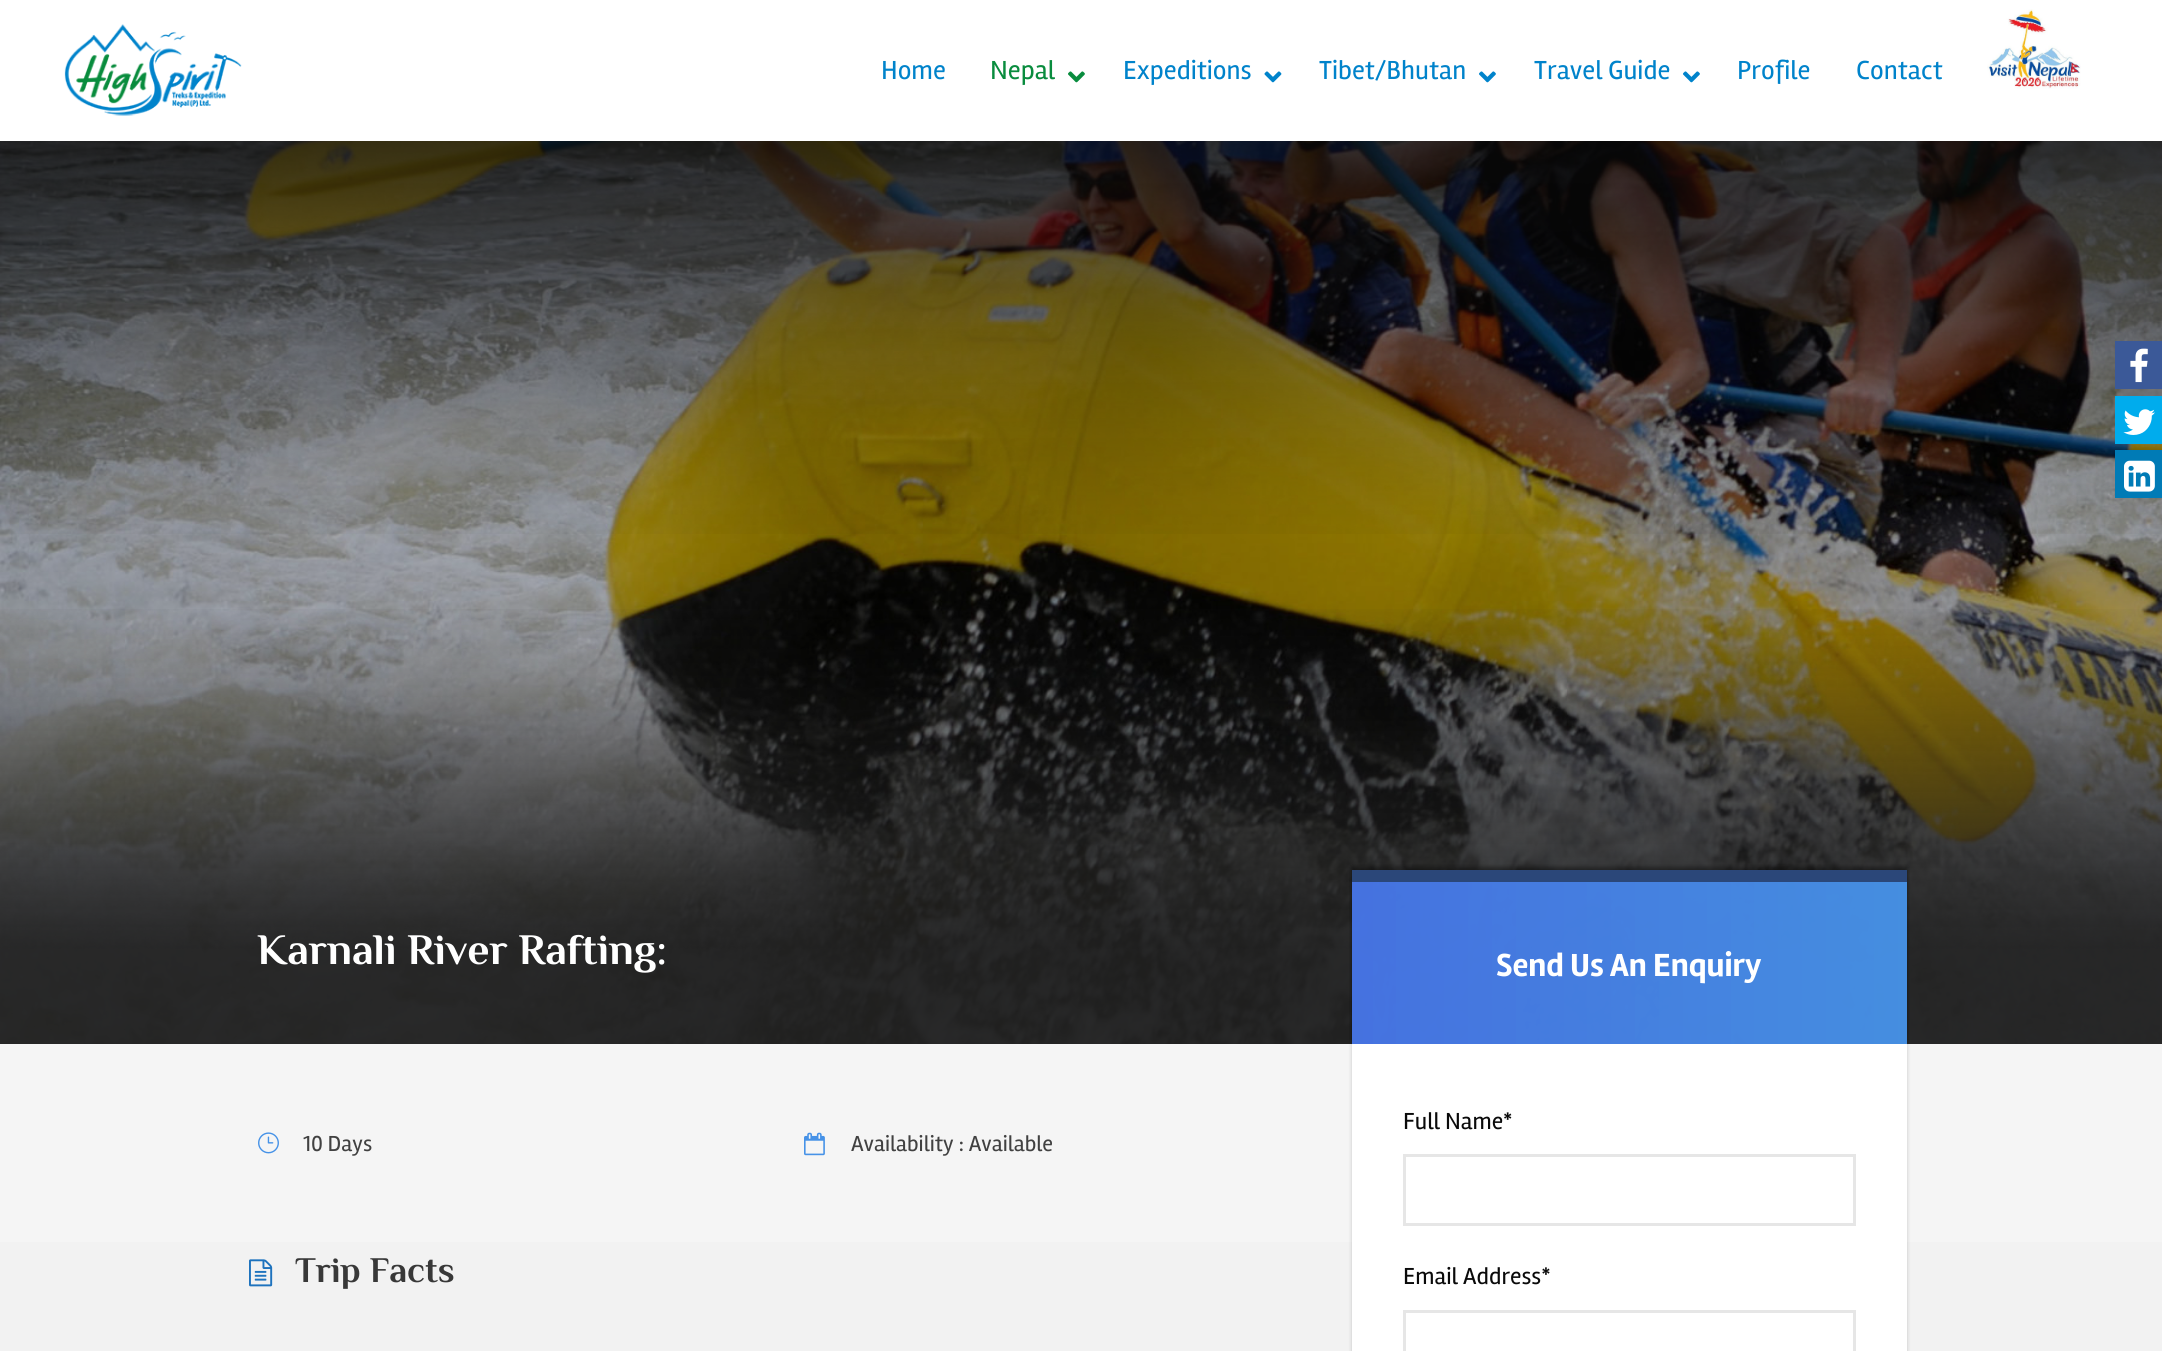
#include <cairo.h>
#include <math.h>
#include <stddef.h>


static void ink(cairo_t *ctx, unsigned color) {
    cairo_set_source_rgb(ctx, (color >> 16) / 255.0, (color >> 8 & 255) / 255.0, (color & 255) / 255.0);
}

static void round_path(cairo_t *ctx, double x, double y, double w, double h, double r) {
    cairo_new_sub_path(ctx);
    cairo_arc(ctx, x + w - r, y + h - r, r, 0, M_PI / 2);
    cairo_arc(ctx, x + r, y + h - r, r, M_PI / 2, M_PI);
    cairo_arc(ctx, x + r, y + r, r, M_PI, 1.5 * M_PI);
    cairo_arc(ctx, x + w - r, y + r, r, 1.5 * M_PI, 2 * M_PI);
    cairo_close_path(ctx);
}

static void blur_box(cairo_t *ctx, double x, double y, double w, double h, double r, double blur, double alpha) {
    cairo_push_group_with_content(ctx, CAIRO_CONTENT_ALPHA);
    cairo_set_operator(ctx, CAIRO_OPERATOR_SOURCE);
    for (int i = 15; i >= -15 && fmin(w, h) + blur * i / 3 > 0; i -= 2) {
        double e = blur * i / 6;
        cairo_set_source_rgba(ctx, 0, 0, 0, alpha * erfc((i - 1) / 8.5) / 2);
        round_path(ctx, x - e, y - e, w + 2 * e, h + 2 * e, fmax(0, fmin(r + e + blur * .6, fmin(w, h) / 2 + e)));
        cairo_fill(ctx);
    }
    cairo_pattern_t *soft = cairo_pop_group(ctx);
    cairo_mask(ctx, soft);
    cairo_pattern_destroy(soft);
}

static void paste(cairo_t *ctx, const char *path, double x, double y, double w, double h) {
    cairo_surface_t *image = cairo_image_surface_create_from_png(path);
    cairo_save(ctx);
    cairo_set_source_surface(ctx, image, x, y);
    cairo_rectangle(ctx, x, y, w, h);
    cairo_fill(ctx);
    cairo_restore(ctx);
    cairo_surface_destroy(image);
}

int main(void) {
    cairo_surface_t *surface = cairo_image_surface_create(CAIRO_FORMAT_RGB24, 2162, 1351);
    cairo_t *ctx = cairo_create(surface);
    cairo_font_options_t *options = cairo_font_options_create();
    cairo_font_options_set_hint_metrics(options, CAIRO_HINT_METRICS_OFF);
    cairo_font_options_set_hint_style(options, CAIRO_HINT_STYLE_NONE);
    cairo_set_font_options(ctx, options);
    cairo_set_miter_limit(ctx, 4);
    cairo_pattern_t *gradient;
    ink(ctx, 0xF2F2F2);
    cairo_paint(ctx);
    ink(ctx, 0xFFFFFF);
    cairo_rectangle(ctx, 0, 0, 2162, 141);
    cairo_fill(ctx);
    paste(ctx, "media/1.png", 64, 24, 178, 92);
    cairo_select_font_face(ctx, "Rambla", CAIRO_FONT_SLANT_NORMAL, CAIRO_FONT_WEIGHT_NORMAL);
    cairo_set_font_size(ctx, 27);
    ink(ctx, 0x0083CB);
    cairo_move_to(ctx, 881, 79);
    cairo_show_text(ctx, "Home");
    ink(ctx, 0x098C3E);
    cairo_move_to(ctx, 990, 79);
    cairo_show_text(ctx, "Nepal");
    paste(ctx, "media/2.png", 1068, 71, 17, 12);
    ink(ctx, 0x0083CB);
    cairo_move_to(ctx, 1123, 79);
    cairo_show_text(ctx, "Expeditions");
    paste(ctx, "media/3.png", 1264, 71, 18, 12);
    cairo_move_to(ctx, 1319, 79);
    cairo_show_text(ctx, "Tibet/Bhutan");
    paste(ctx, "media/4.png", 1479, 71, 17, 12);
    cairo_move_to(ctx, 1534, 79);
    cairo_show_text(ctx, "Travel Guide");
    paste(ctx, "media/4.png", 1683, 71, 17, 12);
    cairo_move_to(ctx, 1737, 79);
    cairo_show_text(ctx, "Profile");
    cairo_move_to(ctx, 1856, 79);
    cairo_show_text(ctx, "Contact");
    paste(ctx, "media/5.png", 1987, 9, 94, 80);
    paste(ctx, "media/6.png", 0, 141, 2162, 903);
    paste(ctx, "media/7.png", 0, 141, 2162, 393);
    paste(ctx, "media/8.png", 0, 609, 2162, 435);
    cairo_select_font_face(ctx, "Philosopher", CAIRO_FONT_SLANT_NORMAL, CAIRO_FONT_WEIGHT_BOLD);
    cairo_set_font_size(ctx, 43.5);
    ink(ctx, 0xFFFFFF);
    cairo_move_to(ctx, 257, 964);
    cairo_show_text(ctx, "Karnali River Rafting:");
    ink(ctx, 0xF5F5F5);
    cairo_rectangle(ctx, 0, 1044, 2162, 198);
    cairo_fill(ctx);
    cairo_save(ctx);
    cairo_set_fill_rule(ctx, CAIRO_FILL_RULE_EVEN_ODD);
    cairo_new_path(ctx);
    cairo_move_to(ctx, 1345, 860);
    cairo_line_to(ctx, 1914, 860);
    cairo_line_to(ctx, 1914, 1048);
    cairo_line_to(ctx, 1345, 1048);
    cairo_close_path(ctx);
    cairo_move_to(ctx, 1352, 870);
    cairo_line_to(ctx, 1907, 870);
    cairo_line_to(ctx, 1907, 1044);
    cairo_line_to(ctx, 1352, 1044);
    cairo_close_path(ctx);
    cairo_clip(ctx);
    ink(ctx, 0x000000);
    blur_box(ctx, 1352, 867, 555, 174, 0, 2, 0.2);
    cairo_restore(ctx);
    cairo_set_source_rgba(ctx, 0.173, 0.282, 0.478, 0.9);
    cairo_rectangle(ctx, 1352, 870, 555, 12);
    cairo_fill(ctx);
    gradient = cairo_pattern_create_linear(1352, 963, 1907, 963);
    cairo_pattern_add_color_stop_rgba(gradient, 0, 0.275, 0.459, 0.906, 0.8);
    cairo_pattern_add_color_stop_rgba(gradient, 1, 0.275, 0.573, 0.906, 0.8);
    cairo_set_source(ctx, gradient);
    cairo_pattern_destroy(gradient);
    cairo_rectangle(ctx, 1352, 882, 555, 162);
    cairo_fill(ctx);
    paste(ctx, "media/9.png", 258, 1132, 21, 22);
    cairo_select_font_face(ctx, "Rambla", CAIRO_FONT_SLANT_NORMAL, CAIRO_FONT_WEIGHT_NORMAL);
    cairo_set_font_size(ctx, 22.5);
    ink(ctx, 0x414141);
    cairo_move_to(ctx, 303, 1151);
    cairo_show_text(ctx, "10 Days");
    paste(ctx, "media/10.png", 804, 1132, 21, 24);
    cairo_move_to(ctx, 851, 1151);
    cairo_show_text(ctx, "Availability : Available");
    cairo_save(ctx);
    cairo_set_fill_rule(ctx, CAIRO_FILL_RULE_EVEN_ODD);
    cairo_new_path(ctx);
    cairo_move_to(ctx, 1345, 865);
    cairo_line_to(ctx, 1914, 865);
    cairo_line_to(ctx, 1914, 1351);
    cairo_line_to(ctx, 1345, 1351);
    cairo_close_path(ctx);
    cairo_move_to(ctx, 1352, 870);
    cairo_line_to(ctx, 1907, 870);
    cairo_line_to(ctx, 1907, 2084);
    cairo_line_to(ctx, 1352, 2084);
    cairo_close_path(ctx);
    cairo_clip(ctx);
    ink(ctx, 0x000000);
    blur_box(ctx, 1352, 872, 555, 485, 0, 2, 0.2);
    cairo_restore(ctx);
    cairo_save(ctx);
    cairo_set_fill_rule(ctx, CAIRO_FILL_RULE_EVEN_ODD);
    cairo_new_path(ctx);
    cairo_move_to(ctx, 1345, 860);
    cairo_line_to(ctx, 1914, 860);
    cairo_line_to(ctx, 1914, 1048);
    cairo_line_to(ctx, 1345, 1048);
    cairo_close_path(ctx);
    cairo_move_to(ctx, 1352, 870);
    cairo_line_to(ctx, 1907, 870);
    cairo_line_to(ctx, 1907, 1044);
    cairo_line_to(ctx, 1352, 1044);
    cairo_close_path(ctx);
    cairo_clip(ctx);
    ink(ctx, 0x000000);
    blur_box(ctx, 1352, 867, 555, 174, 0, 2, 0.2);
    cairo_restore(ctx);
    cairo_set_source_rgba(ctx, 0.173, 0.282, 0.478, 0.9);
    cairo_rectangle(ctx, 1352, 870, 555, 12);
    cairo_fill(ctx);
    gradient = cairo_pattern_create_linear(1352, 963, 1907, 963);
    cairo_pattern_add_color_stop_rgba(gradient, 0, 0.275, 0.459, 0.906, 0.8);
    cairo_pattern_add_color_stop_rgba(gradient, 1, 0.275, 0.573, 0.906, 0.8);
    cairo_set_source(ctx, gradient);
    cairo_pattern_destroy(gradient);
    cairo_rectangle(ctx, 1352, 882, 555, 162);
    cairo_fill(ctx);
    cairo_select_font_face(ctx, "Rambla", CAIRO_FONT_SLANT_NORMAL, CAIRO_FONT_WEIGHT_BOLD);
    cairo_set_font_size(ctx, 33);
    ink(ctx, 0xFFFFFF);
    cairo_move_to(ctx, 1496, 976);
    cairo_show_text(ctx, "Send Us An Enquiry");
    cairo_rectangle(ctx, 1352, 1044, 555, 307);
    cairo_fill(ctx);
    cairo_select_font_face(ctx, "Rambla", CAIRO_FONT_SLANT_NORMAL, CAIRO_FONT_WEIGHT_NORMAL);
    cairo_set_font_size(ctx, 24);
    ink(ctx, 0x0A0A0A);
    cairo_move_to(ctx, 1403, 1129);
    cairo_show_text(ctx, "Full Name*");
    cairo_rectangle(ctx, 1404.5, 1155.5, 450, 69);
    ink(ctx, 0xE6E6E6);
    cairo_set_line_width(ctx, 3);
    cairo_stroke(ctx);
    ink(ctx, 0x0A0A0A);
    cairo_move_to(ctx, 1403, 1284);
    cairo_show_text(ctx, "Email Address*");
    cairo_rectangle(ctx, 1404.5, 1311.5, 450, 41);
    ink(ctx, 0xE6E6E6);
    cairo_stroke(ctx);
    paste(ctx, "media/11.png", 249, 1259, 24, 28);
    cairo_select_font_face(ctx, "Philosopher", CAIRO_FONT_SLANT_NORMAL, CAIRO_FONT_WEIGHT_BOLD);
    cairo_set_font_size(ctx, 36);
    ink(ctx, 0x383838);
    cairo_move_to(ctx, 295, 1282);
    cairo_show_text(ctx, "Trip Facts");
    ink(ctx, 0x3B5998);
    cairo_rectangle(ctx, 2115, 341, 47, 48);
    cairo_fill(ctx);
    paste(ctx, "media/12.png", 2130, 348, 18, 35);
    ink(ctx, 0x00ACED);
    cairo_rectangle(ctx, 2115, 396, 47, 48);
    cairo_fill(ctx);
    paste(ctx, "media/13.png", 2123, 409, 32, 26);
    ink(ctx, 0x007BB6);
    cairo_rectangle(ctx, 2115, 450, 47, 48);
    cairo_fill(ctx);
    paste(ctx, "media/14.png", 2124, 460, 31, 32);
    cairo_surface_write_to_png(surface, "image.png");
    cairo_font_options_destroy(options);
    cairo_destroy(ctx);
    cairo_surface_destroy(surface);
    return 0;
}
